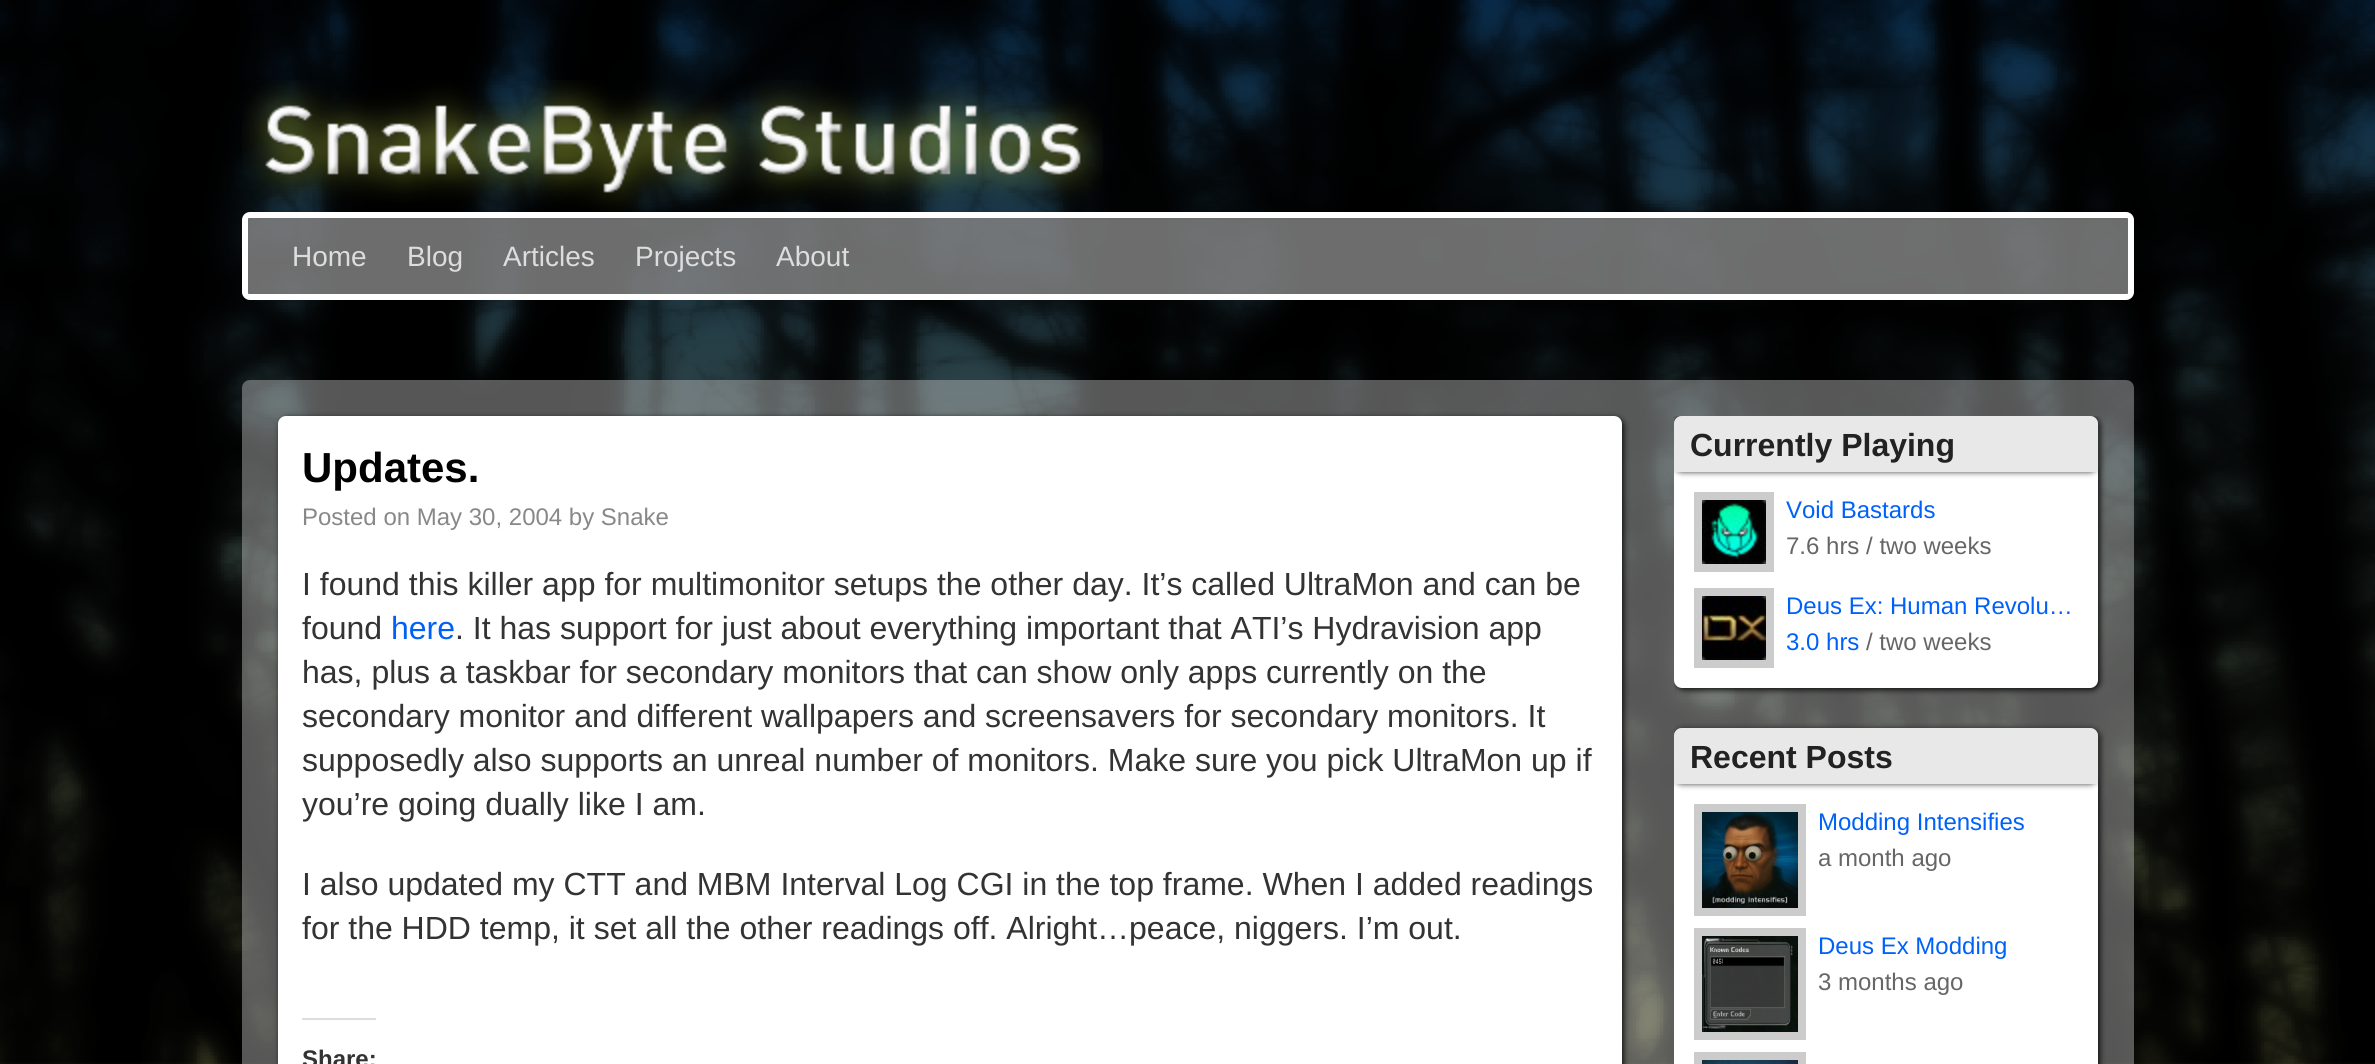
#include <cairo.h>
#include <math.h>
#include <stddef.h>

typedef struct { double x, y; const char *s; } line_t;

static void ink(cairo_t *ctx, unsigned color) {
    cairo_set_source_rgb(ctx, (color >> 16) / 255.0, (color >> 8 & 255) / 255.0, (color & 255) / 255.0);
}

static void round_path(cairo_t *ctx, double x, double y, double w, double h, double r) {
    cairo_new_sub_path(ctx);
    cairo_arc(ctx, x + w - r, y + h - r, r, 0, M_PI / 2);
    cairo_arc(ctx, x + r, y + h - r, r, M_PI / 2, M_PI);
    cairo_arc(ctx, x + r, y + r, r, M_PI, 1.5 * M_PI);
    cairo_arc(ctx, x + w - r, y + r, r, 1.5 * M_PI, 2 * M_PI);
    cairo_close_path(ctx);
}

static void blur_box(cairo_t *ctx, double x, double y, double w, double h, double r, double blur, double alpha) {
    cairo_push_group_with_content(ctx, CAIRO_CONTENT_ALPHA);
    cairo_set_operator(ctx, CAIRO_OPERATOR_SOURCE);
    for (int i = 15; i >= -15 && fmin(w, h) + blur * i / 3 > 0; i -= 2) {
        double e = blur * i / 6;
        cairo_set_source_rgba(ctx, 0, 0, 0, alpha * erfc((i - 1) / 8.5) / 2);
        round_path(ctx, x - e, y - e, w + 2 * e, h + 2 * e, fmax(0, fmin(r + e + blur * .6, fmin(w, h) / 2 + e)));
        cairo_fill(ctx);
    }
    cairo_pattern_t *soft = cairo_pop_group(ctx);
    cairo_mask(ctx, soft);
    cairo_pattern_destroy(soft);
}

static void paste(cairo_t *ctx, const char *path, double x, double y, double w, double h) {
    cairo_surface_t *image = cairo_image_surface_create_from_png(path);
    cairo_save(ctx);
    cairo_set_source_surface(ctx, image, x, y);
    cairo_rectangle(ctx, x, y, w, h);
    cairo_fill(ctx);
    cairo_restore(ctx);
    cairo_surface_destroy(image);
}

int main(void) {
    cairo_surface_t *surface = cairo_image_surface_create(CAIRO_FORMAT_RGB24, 2375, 1064);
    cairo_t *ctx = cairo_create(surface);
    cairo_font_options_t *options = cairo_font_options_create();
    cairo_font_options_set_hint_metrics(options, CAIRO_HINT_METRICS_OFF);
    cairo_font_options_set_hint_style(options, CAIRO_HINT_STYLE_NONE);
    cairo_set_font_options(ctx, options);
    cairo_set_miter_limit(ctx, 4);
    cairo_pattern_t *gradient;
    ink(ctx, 0xFFFFFF);
    cairo_paint(ctx);
    gradient = cairo_pattern_create_linear(0, 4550, 0, 0);
    cairo_pattern_add_color_stop_rgba(gradient, 0, 0.918, 0.604, 0.267, 1);
    cairo_pattern_add_color_stop_rgba(gradient, 0.5, 0.8, 0.655, 0.157, 1);
    cairo_pattern_add_color_stop_rgba(gradient, 1, 0.035, 0.176, 0.302, 1);
    cairo_set_source(ctx, gradient);
    cairo_pattern_destroy(gradient);
    cairo_rectangle(ctx, 0, 0, 2375, 1064);
    cairo_fill(ctx);
    paste(ctx, "media/1.png", 0, 0, 2375, 1064);
    paste(ctx, "media/2.png", 242, 80, 861, 132);
    round_path(ctx, 245, 215, 1886, 82, 5);
    ink(ctx, 0xFFFFFF);
    cairo_set_line_width(ctx, 6);
    cairo_stroke(ctx);
    cairo_set_source_rgba(ctx, 0.502, 0.502, 0.502, 0.85);
    cairo_rectangle(ctx, 248, 218, 1880, 76);
    cairo_fill(ctx);
    cairo_select_font_face(ctx, "Liberation Sans", CAIRO_FONT_SLANT_NORMAL, CAIRO_FONT_WEIGHT_NORMAL);
    cairo_set_font_size(ctx, 28);
    ink(ctx, 0xDDDDDD);
    {
        static const line_t items[] = {
            {292, 266, "Home"},
            {407, 266, "Blog"},
            {503, 266, "Articles"},
            {635, 266, "Projects"},
            {776, 266, "About"},
        };
        for (size_t i = 0; i < sizeof items / sizeof *items; i++) {
            cairo_move_to(ctx, items[i].x, items[i].y);
            cairo_show_text(ctx, items[i].s);
        }
    }
    paste(ctx, "media/3.png", 242, 380, 1892, 684);
    ink(ctx, 0x101010);
    blur_box(ctx, 280, 418, 1344, 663, 8, 3, 1);
    ink(ctx, 0xFFFFFF);
    round_path(ctx, 278, 416, 1344, 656, 8);
    cairo_fill(ctx);
    cairo_select_font_face(ctx, "Liberation Sans", CAIRO_FONT_SLANT_NORMAL, CAIRO_FONT_WEIGHT_BOLD);
    cairo_set_font_size(ctx, 42);
    ink(ctx, 0x000000);
    cairo_move_to(ctx, 302, 482);
    cairo_show_text(ctx, "Updates.");
    cairo_select_font_face(ctx, "Liberation Sans", CAIRO_FONT_SLANT_NORMAL, CAIRO_FONT_WEIGHT_NORMAL);
    cairo_set_font_size(ctx, 24);
    ink(ctx, 0x888888);
    cairo_move_to(ctx, 302, 525);
    cairo_show_text(ctx, "Posted on May 30, 2004 by Snake");
    cairo_set_font_size(ctx, 32);
    ink(ctx, 0x333333);
    cairo_move_to(ctx, 302, 595);
    cairo_show_text(ctx, "I found this killer app for multimonitor setups the other day. It’s called UltraMon and can be");
    cairo_move_to(ctx, 302, 639);
    cairo_show_text(ctx, "found");
    ink(ctx, 0x0061F8);
    cairo_move_to(ctx, 391, 639);
    cairo_show_text(ctx, "here");
    ink(ctx, 0x333333);
    {
        static const line_t items[] = {
            {455, 639, ". It has support for just about everything important that ATI’s Hydravision app"},
            {302, 683, "has, plus a taskbar for secondary monitors that can show only apps currently on the"},
            {302, 727, "secondary monitor and different wallpapers and screensavers for secondary monitors. It"},
            {302, 771, "supposedly also supports an unreal number of monitors. Make sure you pick UltraMon up if"},
            {302, 815, "you’re going dually like I am."},
            {302, 895, "I also updated my CTT and MBM Interval Log CGI in the top frame. When I added readings"},
            {302, 939, "for the HDD temp, it set all the other readings off. Alright…peace, niggers. I’m out."},
        };
        for (size_t i = 0; i < sizeof items / sizeof *items; i++) {
            cairo_move_to(ctx, items[i].x, items[i].y);
            cairo_show_text(ctx, items[i].s);
        }
    }
    ink(ctx, 0xDDDDDD);
    cairo_rectangle(ctx, 302, 1018, 74, 2);
    cairo_fill(ctx);
    cairo_select_font_face(ctx, "Liberation Sans", CAIRO_FONT_SLANT_NORMAL, CAIRO_FONT_WEIGHT_BOLD);
    cairo_set_font_size(ctx, 24);
    ink(ctx, 0x333333);
    cairo_move_to(ctx, 302, 1067);
    cairo_show_text(ctx, "Share:");
    cairo_save(ctx);
    cairo_rectangle(ctx, 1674, 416, 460, 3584);
    cairo_clip(ctx);
    ink(ctx, 0x101010);
    blur_box(ctx, 1676, 418, 424, 272, 8, 3, 1);
    cairo_restore(ctx);
    ink(ctx, 0xFFFFFF);
    round_path(ctx, 1674, 416, 424, 272, 8);
    cairo_fill(ctx);
    cairo_save(ctx);
    cairo_rectangle(ctx, 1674, 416, 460, 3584);
    cairo_clip(ctx);
    ink(ctx, 0x404040);
    blur_box(ctx, 1674, 416, 424, 56, 8, 3, 1);
    cairo_restore(ctx);
    ink(ctx, 0xE8E8E8);
    cairo_new_path(ctx);
    cairo_move_to(ctx, 1682, 416);
    cairo_line_to(ctx, 2090, 416);
    cairo_curve_to(ctx, 2094.5, 416, 2098, 419.5, 2098, 424);
    cairo_line_to(ctx, 2098, 472);
    cairo_line_to(ctx, 1674, 472);
    cairo_line_to(ctx, 1674, 424);
    cairo_curve_to(ctx, 1674, 419.5, 1677.5, 416, 1682, 416);
    cairo_close_path(ctx);
    cairo_fill(ctx);
    cairo_set_font_size(ctx, 32);
    ink(ctx, 0x222222);
    cairo_move_to(ctx, 1690, 456);
    cairo_show_text(ctx, "Currently Playing");
    cairo_rectangle(ctx, 1698, 496, 72, 72);
    ink(ctx, 0xCCCCCC);
    cairo_set_line_width(ctx, 8);
    cairo_stroke(ctx);
    paste(ctx, "media/4.png", 1702, 500, 64, 64);
    cairo_select_font_face(ctx, "Liberation Sans", CAIRO_FONT_SLANT_NORMAL, CAIRO_FONT_WEIGHT_NORMAL);
    cairo_set_font_size(ctx, 24);
    ink(ctx, 0x0061F8);
    cairo_move_to(ctx, 1786, 518);
    cairo_show_text(ctx, "Void Bastards");
    ink(ctx, 0x666666);
    cairo_move_to(ctx, 1786, 554);
    cairo_show_text(ctx, "7.6 hrs / two weeks");
    cairo_rectangle(ctx, 1698, 592, 72, 72);
    ink(ctx, 0xCCCCCC);
    cairo_stroke(ctx);
    paste(ctx, "media/5.png", 1702, 596, 64, 64);
    ink(ctx, 0x0061F8);
    cairo_move_to(ctx, 1786, 614);
    cairo_show_text(ctx, "Deus Ex: Human Revolu…");
    cairo_move_to(ctx, 1786, 650);
    cairo_show_text(ctx, "3.0 hrs");
    ink(ctx, 0x666666);
    cairo_move_to(ctx, 1866, 650);
    cairo_show_text(ctx, "/ two weeks");
    cairo_save(ctx);
    cairo_rectangle(ctx, 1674, 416, 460, 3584);
    cairo_clip(ctx);
    ink(ctx, 0x101010);
    blur_box(ctx, 1676, 730, 424, 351, 8, 3, 1);
    cairo_restore(ctx);
    ink(ctx, 0xFFFFFF);
    round_path(ctx, 1674, 728, 424, 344, 8);
    cairo_fill(ctx);
    cairo_save(ctx);
    cairo_rectangle(ctx, 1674, 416, 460, 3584);
    cairo_clip(ctx);
    ink(ctx, 0x404040);
    blur_box(ctx, 1674, 728, 424, 56, 8, 3, 1);
    cairo_restore(ctx);
    ink(ctx, 0xE8E8E8);
    cairo_new_path(ctx);
    cairo_move_to(ctx, 1682, 728);
    cairo_line_to(ctx, 2090, 728);
    cairo_curve_to(ctx, 2094.5, 728, 2098, 731.5, 2098, 736);
    cairo_line_to(ctx, 2098, 784);
    cairo_line_to(ctx, 1674, 784);
    cairo_line_to(ctx, 1674, 736);
    cairo_curve_to(ctx, 1674, 731.5, 1677.5, 728, 1682, 728);
    cairo_close_path(ctx);
    cairo_fill(ctx);
    cairo_select_font_face(ctx, "Liberation Sans", CAIRO_FONT_SLANT_NORMAL, CAIRO_FONT_WEIGHT_BOLD);
    cairo_set_font_size(ctx, 32);
    ink(ctx, 0x222222);
    cairo_move_to(ctx, 1690, 768);
    cairo_show_text(ctx, "Recent Posts");
    cairo_rectangle(ctx, 1698, 808, 104, 104);
    ink(ctx, 0xCCCCCC);
    cairo_stroke(ctx);
    paste(ctx, "media/6.png", 1702, 812, 96, 96);
    cairo_select_font_face(ctx, "Liberation Sans", CAIRO_FONT_SLANT_NORMAL, CAIRO_FONT_WEIGHT_NORMAL);
    cairo_set_font_size(ctx, 24);
    ink(ctx, 0x0061F8);
    cairo_move_to(ctx, 1818, 830);
    cairo_show_text(ctx, "Modding Intensifies");
    ink(ctx, 0x666666);
    cairo_move_to(ctx, 1818, 866);
    cairo_show_text(ctx, "a month ago");
    cairo_rectangle(ctx, 1698, 932, 104, 104);
    ink(ctx, 0xCCCCCC);
    cairo_stroke(ctx);
    paste(ctx, "media/7.png", 1702, 936, 96, 96);
    ink(ctx, 0x0061F8);
    cairo_move_to(ctx, 1818, 954);
    cairo_show_text(ctx, "Deus Ex Modding");
    ink(ctx, 0x666666);
    cairo_move_to(ctx, 1818, 990);
    cairo_show_text(ctx, "3 months ago");
    cairo_rectangle(ctx, 1698, 1056, 104, 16);
    ink(ctx, 0xCCCCCC);
    cairo_stroke(ctx);
    paste(ctx, "media/8.png", 1702, 1060, 96, 4);
    cairo_surface_write_to_png(surface, "image.png");
    cairo_font_options_destroy(options);
    cairo_destroy(ctx);
    cairo_surface_destroy(surface);
    return 0;
}
